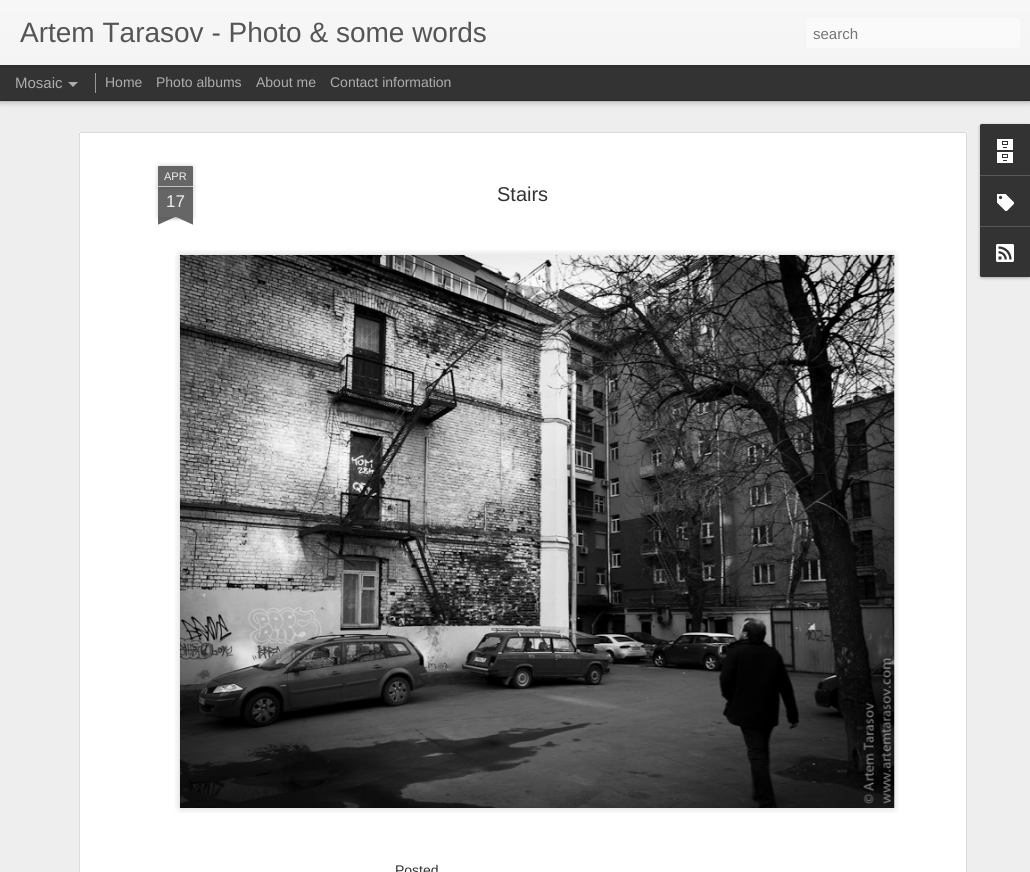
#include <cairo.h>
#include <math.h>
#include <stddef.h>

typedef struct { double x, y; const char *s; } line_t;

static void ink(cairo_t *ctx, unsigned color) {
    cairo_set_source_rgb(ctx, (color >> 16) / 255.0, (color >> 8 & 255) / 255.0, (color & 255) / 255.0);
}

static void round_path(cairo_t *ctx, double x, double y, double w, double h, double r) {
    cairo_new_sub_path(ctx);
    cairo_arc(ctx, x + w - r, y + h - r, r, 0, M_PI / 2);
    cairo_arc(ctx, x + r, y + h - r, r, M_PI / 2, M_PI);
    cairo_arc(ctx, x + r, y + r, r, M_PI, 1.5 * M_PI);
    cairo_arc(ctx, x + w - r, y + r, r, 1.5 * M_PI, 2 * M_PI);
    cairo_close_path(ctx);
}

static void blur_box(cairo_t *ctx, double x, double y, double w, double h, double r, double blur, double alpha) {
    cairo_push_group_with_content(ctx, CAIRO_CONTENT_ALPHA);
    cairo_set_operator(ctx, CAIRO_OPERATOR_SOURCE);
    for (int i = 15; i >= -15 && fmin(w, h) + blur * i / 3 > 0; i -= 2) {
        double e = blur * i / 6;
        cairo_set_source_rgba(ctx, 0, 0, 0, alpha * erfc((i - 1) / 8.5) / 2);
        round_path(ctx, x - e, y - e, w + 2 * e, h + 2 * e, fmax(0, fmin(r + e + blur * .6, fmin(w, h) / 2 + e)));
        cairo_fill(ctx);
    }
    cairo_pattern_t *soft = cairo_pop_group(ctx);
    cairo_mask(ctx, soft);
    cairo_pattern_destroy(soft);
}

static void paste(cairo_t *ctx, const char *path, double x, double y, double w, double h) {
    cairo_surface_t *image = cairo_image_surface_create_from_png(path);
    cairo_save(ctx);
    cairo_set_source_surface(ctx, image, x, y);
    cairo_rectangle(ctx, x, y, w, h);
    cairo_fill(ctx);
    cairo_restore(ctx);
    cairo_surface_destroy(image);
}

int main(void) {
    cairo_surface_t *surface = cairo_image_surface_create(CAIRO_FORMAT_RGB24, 1030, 872);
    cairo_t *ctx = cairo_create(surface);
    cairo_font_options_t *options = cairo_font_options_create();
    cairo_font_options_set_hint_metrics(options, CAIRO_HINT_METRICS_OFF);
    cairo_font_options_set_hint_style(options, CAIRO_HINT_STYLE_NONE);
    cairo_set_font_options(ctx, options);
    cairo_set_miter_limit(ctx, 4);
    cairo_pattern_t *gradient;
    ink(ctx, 0x333333);
    cairo_paint(ctx);
    ink(ctx, 0xEEEEEE);
    cairo_rectangle(ctx, 0, 101, 1030, 771);
    cairo_fill(ctx);
    ink(ctx, 0x000000);
    blur_box(ctx, 0, 65, 1030, 35, 0, 4, 0.5);
    ink(ctx, 0x333333);
    cairo_rectangle(ctx, 0, 65, 1030, 35);
    cairo_fill(ctx);
    ink(ctx, 0x999999);
    cairo_rectangle(ctx, 95, 73, 1, 20);
    cairo_fill(ctx);
    ink(ctx, 0x000000);
    blur_box(ctx, 0, 0, 1030, 65, 0, 2.5, 0.3);
    gradient = cairo_pattern_create_linear(0, 0, 0, 65);
    cairo_pattern_add_color_stop_rgba(gradient, 0, 0.969, 0.969, 0.969, 1);
    cairo_pattern_add_color_stop_rgba(gradient, 1, 0.957, 0.957, 0.957, 1);
    cairo_set_source(ctx, gradient);
    cairo_pattern_destroy(gradient);
    cairo_rectangle(ctx, 0, 0, 1030, 65);
    cairo_fill(ctx);
    cairo_select_font_face(ctx, "Liberation Sans", CAIRO_FONT_SLANT_NORMAL, CAIRO_FONT_WEIGHT_NORMAL);
    cairo_set_font_size(ctx, 28);
    ink(ctx, 0x555555);
    cairo_move_to(ctx, 20, 42);
    cairo_show_text(ctx, "Artem Tarasov - Photo & some words");
    ink(ctx, 0xFAFAFA);
    round_path(ctx, 806, 18, 214, 30, 3);
    cairo_fill(ctx);
    cairo_set_font_size(ctx, 15);
    ink(ctx, 0x757575);
    cairo_move_to(ctx, 813, 39);
    cairo_show_text(ctx, "search");
    ink(ctx, 0xADADAD);
    cairo_move_to(ctx, 15, 88);
    cairo_show_text(ctx, "Mosaic");
    cairo_new_path(ctx);
    cairo_move_to(ctx, 68, 82);
    cairo_line_to(ctx, 78, 82);
    cairo_line_to(ctx, 73, 87);
    cairo_close_path(ctx);
    cairo_fill(ctx);
    cairo_set_font_size(ctx, 14);
    {
        static const line_t items[] = {
            {105, 87, "Home"},
            {156, 87, "Photo albums"},
            {256, 87, "About me"},
            {330, 87, "Contact information"},
        };
        for (size_t i = 0; i < sizeof items / sizeof *items; i++) {
            cairo_move_to(ctx, items[i].x, items[i].y);
            cairo_show_text(ctx, items[i].s);
        }
    }
    ink(ctx, 0xFFFFFF);
    cairo_rectangle(ctx, 78, 131, 890, 741);
    cairo_fill(ctx);
    paste(ctx, "media/1.png", 78, 131, 890, 741);
    ink(ctx, 0x000000);
    blur_box(ctx, 158, 187, 35, 30, 0, 2.5, 0.2);
    ink(ctx, 0x666666);
    cairo_rectangle(ctx, 158, 187, 35, 30);
    cairo_fill(ctx);
    ink(ctx, 0x000000);
    blur_box(ctx, 158, 166, 35, 21, 1, 2.5, 0.2);
    ink(ctx, 0x666666);
    cairo_new_path(ctx);
    cairo_move_to(ctx, 159, 166);
    cairo_line_to(ctx, 192, 166);
    cairo_curve_to(ctx, 192.5, 166, 193, 166.5, 193, 167);
    cairo_line_to(ctx, 193, 187);
    cairo_line_to(ctx, 158, 187);
    cairo_line_to(ctx, 158, 167);
    cairo_curve_to(ctx, 158, 166.5, 158.5, 166, 159, 166);
    cairo_close_path(ctx);
    cairo_fill(ctx);
    ink(ctx, 0xC2C2C2);
    cairo_rectangle(ctx, 158, 186, 35, 1);
    cairo_fill(ctx);
    cairo_set_font_size(ctx, 11);
    ink(ctx, 0xEEEEEE);
    cairo_move_to(ctx, 164, 180);
    cairo_show_text(ctx, "APR");
    cairo_set_font_size(ctx, 17);
    cairo_move_to(ctx, 166, 207);
    cairo_show_text(ctx, "17");
    cairo_save(ctx);
    cairo_rectangle(ctx, 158, 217, 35, 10);
    cairo_clip(ctx);
    ink(ctx, 0x000000);
    blur_box(ctx, 149, 207, 50, 10, 0, 2.5, 0.2);
    cairo_restore(ctx);
    cairo_save(ctx);
    cairo_rectangle(ctx, 158, 217, 35, 10);
    cairo_clip(ctx);
    ink(ctx, 0x666666);
    cairo_new_path(ctx);
    cairo_move_to(ctx, 149, 218);
    cairo_line_to(ctx, 195, 197);
    cairo_line_to(ctx, 199, 206);
    cairo_line_to(ctx, 153, 227);
    cairo_close_path(ctx);
    cairo_fill(ctx);
    cairo_restore(ctx);
    cairo_save(ctx);
    cairo_rectangle(ctx, 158, 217, 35, 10);
    cairo_clip(ctx);
    ink(ctx, 0x000000);
    blur_box(ctx, 152, 207, 50, 10, 0, 2.5, 0.2);
    cairo_restore(ctx);
    cairo_save(ctx);
    cairo_rectangle(ctx, 158, 217, 35, 10);
    cairo_clip(ctx);
    ink(ctx, 0x666666);
    cairo_new_path(ctx);
    cairo_move_to(ctx, 156, 197);
    cairo_line_to(ctx, 202, 218);
    cairo_line_to(ctx, 198, 227);
    cairo_line_to(ctx, 152, 206);
    cairo_close_path(ctx);
    cairo_fill(ctx);
    cairo_restore(ctx);
    cairo_set_font_size(ctx, 20);
    ink(ctx, 0x333333);
    cairo_move_to(ctx, 497, 201);
    cairo_show_text(ctx, "Stairs");
    paste(ctx, "media/2.png", 175, 250, 724, 563);
    paste(ctx, "media/3.png", 179, 254, 716, 554);
    cairo_set_font_size(ctx, 14);
    cairo_move_to(ctx, 395, 875);
    cairo_show_text(ctx, "Posted");
    ink(ctx, 0x000000);
    blur_box(ctx, 980, 125, 50, 153, 2, 1.5, 0.3);
    ink(ctx, 0x333333);
    cairo_new_path(ctx);
    cairo_move_to(ctx, 982, 124);
    cairo_line_to(ctx, 1030, 124);
    cairo_line_to(ctx, 1030, 277);
    cairo_line_to(ctx, 982, 277);
    cairo_curve_to(ctx, 981, 277, 980, 276, 980, 275);
    cairo_line_to(ctx, 980, 126);
    cairo_curve_to(ctx, 980, 125, 981, 124, 982, 124);
    cairo_close_path(ctx);
    cairo_fill(ctx);
    cairo_new_path(ctx);
    cairo_move_to(ctx, 982, 124);
    cairo_line_to(ctx, 1030, 124);
    cairo_line_to(ctx, 1030, 175);
    cairo_line_to(ctx, 980, 175);
    cairo_line_to(ctx, 980, 126);
    cairo_curve_to(ctx, 980, 125, 981, 124, 982, 124);
    cairo_close_path(ctx);
    cairo_fill(ctx);
    paste(ctx, "media/4.png", 997, 139, 16, 24);
    ink(ctx, 0x585858);
    cairo_rectangle(ctx, 980, 175, 50, 1);
    cairo_fill(ctx);
    paste(ctx, "media/5.png", 997, 194, 17, 17);
    ink(ctx, 0x333333);
    cairo_new_path(ctx);
    cairo_move_to(ctx, 980, 226);
    cairo_line_to(ctx, 1030, 226);
    cairo_line_to(ctx, 1030, 277);
    cairo_line_to(ctx, 982, 277);
    cairo_curve_to(ctx, 981, 277, 980, 276, 980, 275);
    cairo_close_path(ctx);
    cairo_fill(ctx);
    ink(ctx, 0x585858);
    cairo_rectangle(ctx, 980, 226, 50, 1);
    cairo_fill(ctx);
    paste(ctx, "media/6.png", 996, 244, 18, 18);
    cairo_surface_write_to_png(surface, "image.png");
    cairo_font_options_destroy(options);
    cairo_destroy(ctx);
    cairo_surface_destroy(surface);
    return 0;
}
